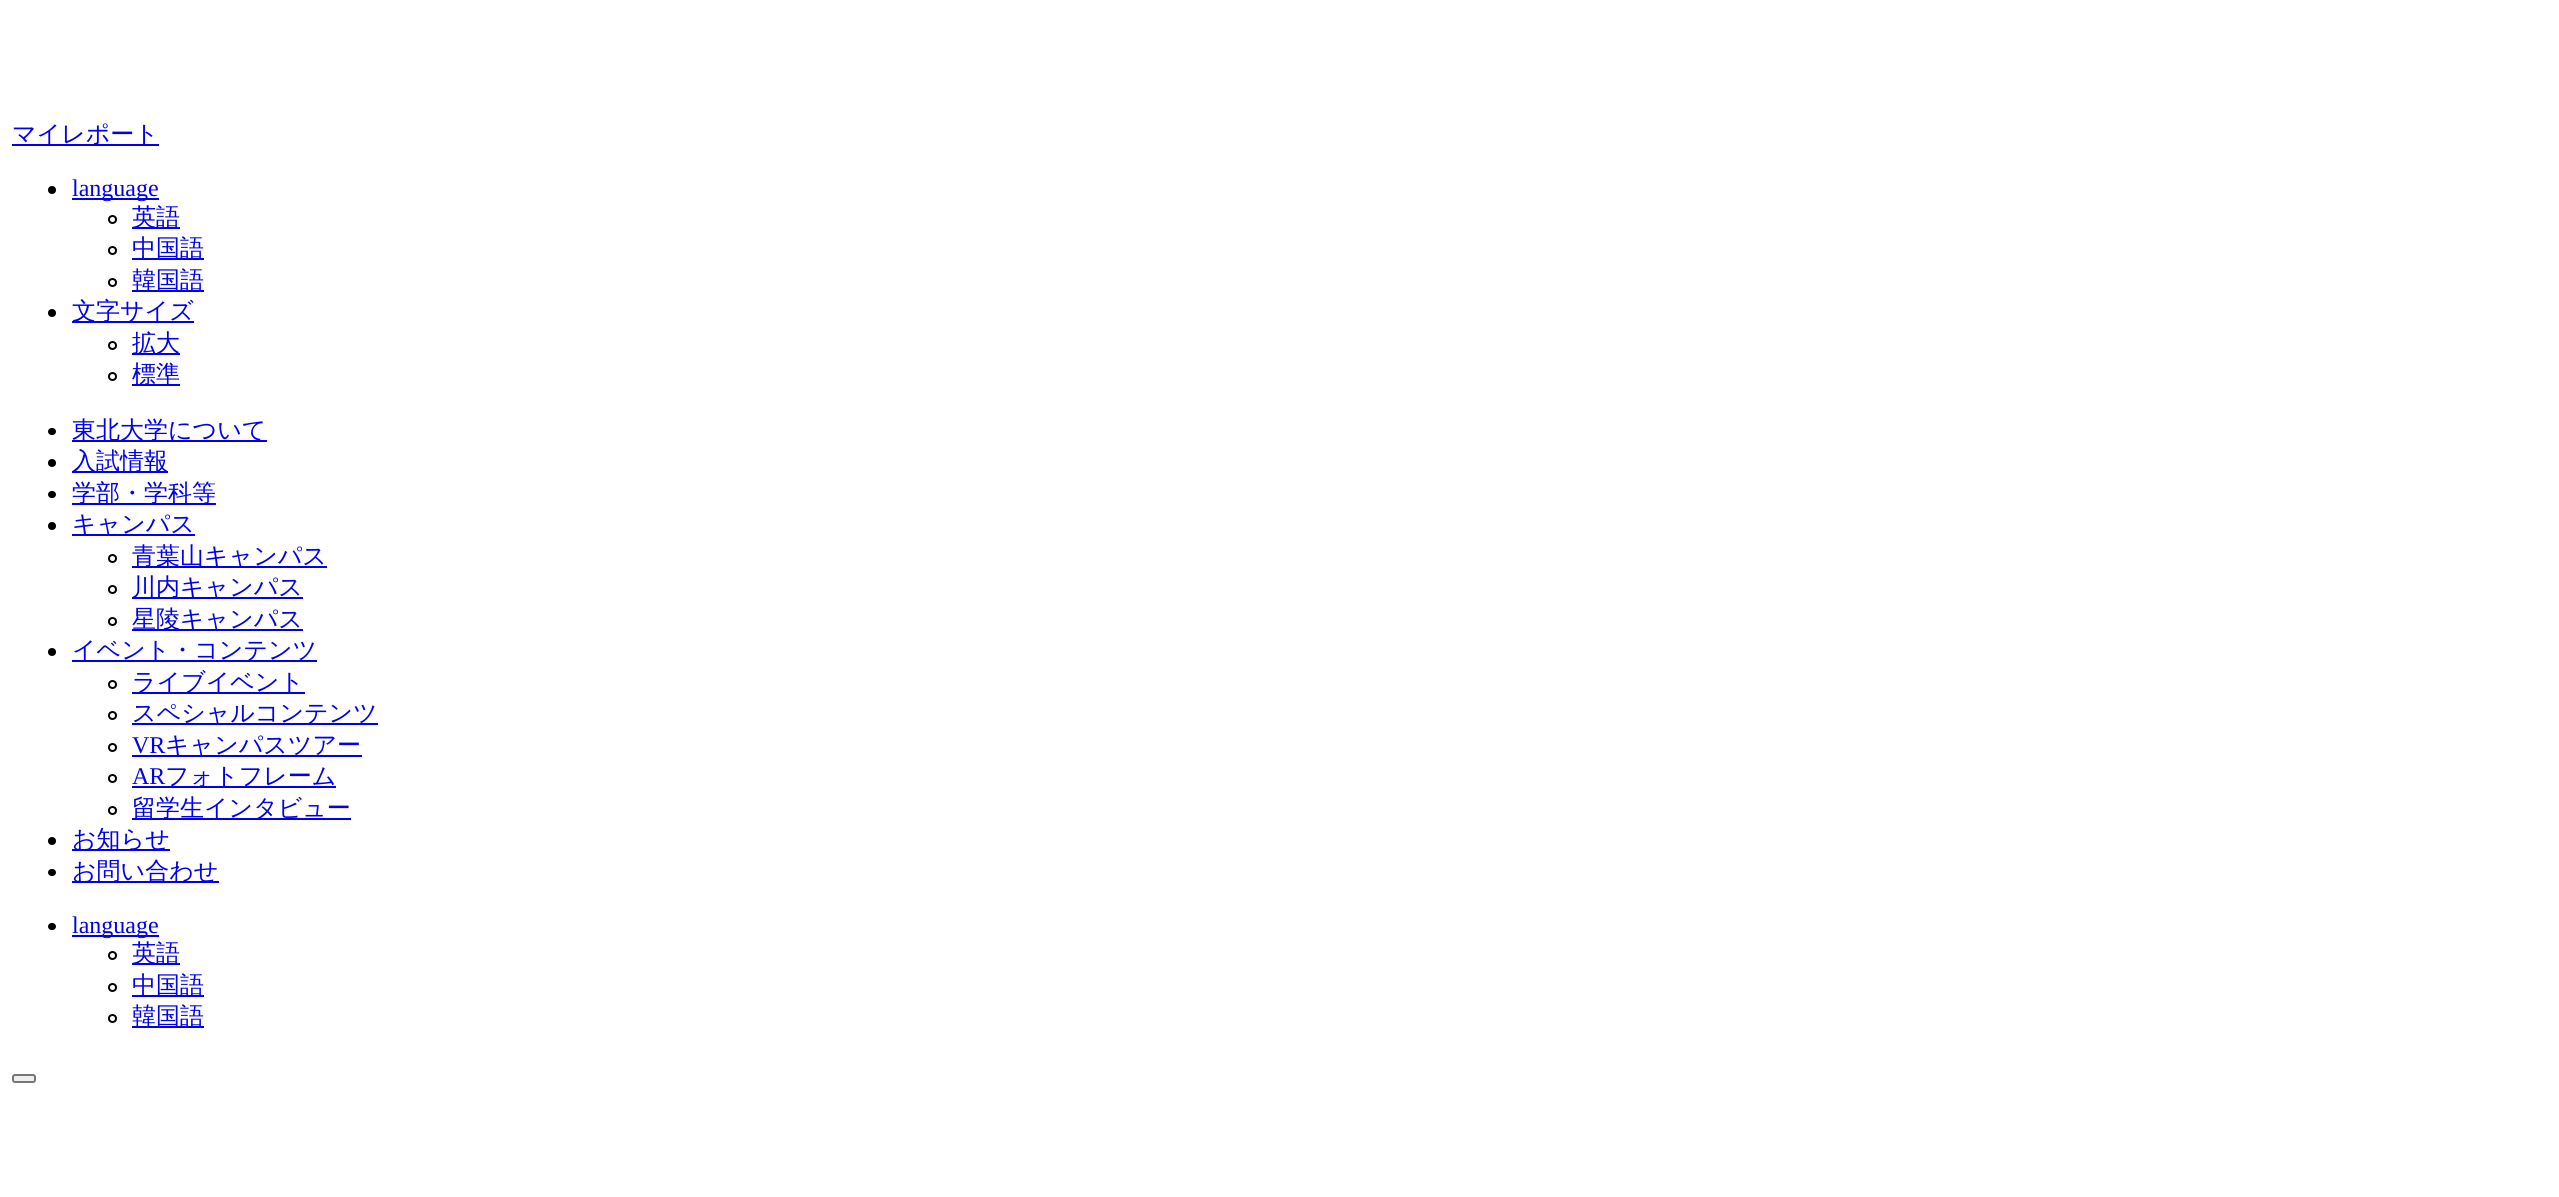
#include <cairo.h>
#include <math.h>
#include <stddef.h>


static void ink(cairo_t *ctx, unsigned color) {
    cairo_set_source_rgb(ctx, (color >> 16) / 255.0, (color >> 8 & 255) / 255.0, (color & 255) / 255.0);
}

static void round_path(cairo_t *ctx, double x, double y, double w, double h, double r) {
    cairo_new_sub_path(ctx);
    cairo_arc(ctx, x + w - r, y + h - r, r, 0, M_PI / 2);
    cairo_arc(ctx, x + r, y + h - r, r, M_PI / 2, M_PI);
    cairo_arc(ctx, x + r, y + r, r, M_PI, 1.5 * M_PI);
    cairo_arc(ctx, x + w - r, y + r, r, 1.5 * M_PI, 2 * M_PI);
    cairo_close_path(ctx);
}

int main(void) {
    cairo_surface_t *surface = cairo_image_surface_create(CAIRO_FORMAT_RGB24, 2559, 1197);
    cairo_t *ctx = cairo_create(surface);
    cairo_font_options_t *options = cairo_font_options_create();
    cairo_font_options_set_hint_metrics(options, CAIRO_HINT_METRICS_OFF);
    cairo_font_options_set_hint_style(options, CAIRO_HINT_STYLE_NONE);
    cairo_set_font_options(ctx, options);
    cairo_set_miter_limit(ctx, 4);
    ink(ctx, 0xFFFFFF);
    cairo_paint(ctx);
    ink(ctx, 0x0000EE);
    cairo_rectangle(ctx, 12, 144, 147, 2);
    cairo_fill(ctx);
    cairo_select_font_face(ctx, "WenQuanYi Zen Hei Medium", CAIRO_FONT_SLANT_NORMAL, CAIRO_FONT_WEIGHT_NORMAL);
    cairo_set_font_size(ctx, 24);
    cairo_move_to(ctx, 12, 142);
    cairo_show_text(ctx, "マイレポート");
    ink(ctx, 0x000000);
    cairo_new_path(ctx);
    cairo_arc(ctx, 52, 190, 4, 0, 2 * M_PI);
    cairo_fill(ctx);
    ink(ctx, 0x0000EE);
    cairo_rectangle(ctx, 72, 198, 87, 2);
    cairo_fill(ctx);
    cairo_select_font_face(ctx, "Liberation Serif", CAIRO_FONT_SLANT_NORMAL, CAIRO_FONT_WEIGHT_NORMAL);
    cairo_move_to(ctx, 72, 196);
    cairo_show_text(ctx, "language");
    cairo_new_path(ctx);
    cairo_arc(ctx, 112.5, 219.5, 3.5, 0, 2 * M_PI);
    ink(ctx, 0x000000);
    cairo_stroke(ctx);
    ink(ctx, 0x0000EE);
    cairo_rectangle(ctx, 132, 227, 48, 2);
    cairo_fill(ctx);
    cairo_select_font_face(ctx, "WenQuanYi Zen Hei Medium", CAIRO_FONT_SLANT_NORMAL, CAIRO_FONT_WEIGHT_NORMAL);
    cairo_move_to(ctx, 132, 225);
    cairo_show_text(ctx, "英語");
    cairo_new_path(ctx);
    cairo_arc(ctx, 112.5, 250.5, 3.5, 0, 2 * M_PI);
    ink(ctx, 0x000000);
    cairo_stroke(ctx);
    ink(ctx, 0x0000EE);
    cairo_rectangle(ctx, 132, 258, 72, 2);
    cairo_fill(ctx);
    cairo_move_to(ctx, 132, 256);
    cairo_show_text(ctx, "中国語");
    cairo_new_path(ctx);
    cairo_arc(ctx, 112.5, 282.5, 3.5, 0, 2 * M_PI);
    ink(ctx, 0x000000);
    cairo_stroke(ctx);
    ink(ctx, 0x0000EE);
    cairo_rectangle(ctx, 132, 290, 72, 2);
    cairo_fill(ctx);
    cairo_move_to(ctx, 132, 288);
    cairo_show_text(ctx, "韓国語");
    ink(ctx, 0x000000);
    cairo_new_path(ctx);
    cairo_arc(ctx, 52, 313, 4, 0, 2 * M_PI);
    cairo_fill(ctx);
    ink(ctx, 0x0000EE);
    cairo_rectangle(ctx, 72, 321, 122, 2);
    cairo_fill(ctx);
    cairo_move_to(ctx, 72, 319);
    cairo_show_text(ctx, "文字サイズ");
    cairo_new_path(ctx);
    cairo_arc(ctx, 112.5, 345.5, 3.5, 0, 2 * M_PI);
    ink(ctx, 0x000000);
    cairo_stroke(ctx);
    ink(ctx, 0x0000EE);
    cairo_rectangle(ctx, 132, 353, 48, 2);
    cairo_fill(ctx);
    cairo_move_to(ctx, 132, 351);
    cairo_show_text(ctx, "拡大");
    cairo_new_path(ctx);
    cairo_arc(ctx, 112.5, 376.5, 3.5, 0, 2 * M_PI);
    ink(ctx, 0x000000);
    cairo_stroke(ctx);
    ink(ctx, 0x0000EE);
    cairo_rectangle(ctx, 132, 384, 48, 2);
    cairo_fill(ctx);
    cairo_move_to(ctx, 132, 382);
    cairo_show_text(ctx, "標準");
    ink(ctx, 0x000000);
    round_path(ctx, 48, 428, 8, 7, 3.5);
    cairo_fill(ctx);
    ink(ctx, 0x0000EE);
    cairo_rectangle(ctx, 72, 440, 195, 2);
    cairo_fill(ctx);
    cairo_move_to(ctx, 72, 438);
    cairo_show_text(ctx, "東北大学について");
    ink(ctx, 0x000000);
    cairo_new_path(ctx);
    cairo_arc(ctx, 52, 463, 4, 0, 2 * M_PI);
    cairo_fill(ctx);
    ink(ctx, 0x0000EE);
    cairo_rectangle(ctx, 72, 471, 96, 2);
    cairo_fill(ctx);
    cairo_move_to(ctx, 72, 469);
    cairo_show_text(ctx, "入試情報");
    ink(ctx, 0x000000);
    round_path(ctx, 48, 491, 8, 7, 3.5);
    cairo_fill(ctx);
    ink(ctx, 0x0000EE);
    cairo_rectangle(ctx, 72, 503, 144, 2);
    cairo_fill(ctx);
    cairo_move_to(ctx, 72, 501);
    cairo_show_text(ctx, "学部・学科等");
    ink(ctx, 0x000000);
    cairo_new_path(ctx);
    cairo_arc(ctx, 52, 526, 4, 0, 2 * M_PI);
    cairo_fill(ctx);
    ink(ctx, 0x0000EE);
    cairo_rectangle(ctx, 72, 534, 123, 2);
    cairo_fill(ctx);
    cairo_move_to(ctx, 72, 532);
    cairo_show_text(ctx, "キャンパス");
    cairo_new_path(ctx);
    cairo_arc(ctx, 112.5, 558.5, 3.5, 0, 2 * M_PI);
    ink(ctx, 0x000000);
    cairo_stroke(ctx);
    ink(ctx, 0x0000EE);
    cairo_rectangle(ctx, 132, 566, 195, 2);
    cairo_fill(ctx);
    cairo_move_to(ctx, 132, 564);
    cairo_show_text(ctx, "青葉山キャンパス");
    cairo_new_path(ctx);
    cairo_arc(ctx, 112.5, 589.5, 3.5, 0, 2 * M_PI);
    ink(ctx, 0x000000);
    cairo_stroke(ctx);
    ink(ctx, 0x0000EE);
    cairo_rectangle(ctx, 132, 597, 171, 2);
    cairo_fill(ctx);
    cairo_move_to(ctx, 132, 595);
    cairo_show_text(ctx, "川内キャンパス");
    cairo_new_path(ctx);
    cairo_arc(ctx, 112.5, 621.5, 3.5, 0, 2 * M_PI);
    ink(ctx, 0x000000);
    cairo_stroke(ctx);
    ink(ctx, 0x0000EE);
    cairo_rectangle(ctx, 132, 629, 171, 2);
    cairo_fill(ctx);
    cairo_move_to(ctx, 132, 627);
    cairo_show_text(ctx, "星陵キャンパス");
    ink(ctx, 0x000000);
    cairo_new_path(ctx);
    cairo_arc(ctx, 52, 652, 4, 0, 2 * M_PI);
    cairo_fill(ctx);
    ink(ctx, 0x0000EE);
    cairo_rectangle(ctx, 72, 660, 245, 2);
    cairo_fill(ctx);
    cairo_move_to(ctx, 72, 658);
    cairo_show_text(ctx, "イベント・コンテンツ");
    cairo_new_path(ctx);
    cairo_arc(ctx, 112.5, 684.5, 3.5, 0, 2 * M_PI);
    ink(ctx, 0x000000);
    cairo_stroke(ctx);
    ink(ctx, 0x0000EE);
    cairo_rectangle(ctx, 132, 692, 173, 2);
    cairo_fill(ctx);
    cairo_move_to(ctx, 132, 690);
    cairo_show_text(ctx, "ライブイベント");
    cairo_new_path(ctx);
    cairo_arc(ctx, 112.5, 715.5, 3.5, 0, 2 * M_PI);
    ink(ctx, 0x000000);
    cairo_stroke(ctx);
    ink(ctx, 0x0000EE);
    cairo_rectangle(ctx, 132, 723, 246, 2);
    cairo_fill(ctx);
    cairo_move_to(ctx, 132, 721);
    cairo_show_text(ctx, "スペシャルコンテンツ");
    cairo_new_path(ctx);
    cairo_arc(ctx, 112.5, 747.5, 3.5, 0, 2 * M_PI);
    ink(ctx, 0x000000);
    cairo_stroke(ctx);
    cairo_select_font_face(ctx, "Liberation Serif", CAIRO_FONT_SLANT_NORMAL, CAIRO_FONT_WEIGHT_NORMAL);
    ink(ctx, 0x0000EE);
    cairo_move_to(ctx, 132, 753);
    cairo_show_text(ctx, "VR");
    cairo_rectangle(ctx, 132, 755, 230, 2);
    cairo_fill(ctx);
    cairo_select_font_face(ctx, "WenQuanYi Zen Hei Medium", CAIRO_FONT_SLANT_NORMAL, CAIRO_FONT_WEIGHT_NORMAL);
    cairo_move_to(ctx, 165, 753);
    cairo_show_text(ctx, "キャンパスツアー");
    cairo_new_path(ctx);
    cairo_arc(ctx, 112.5, 778.5, 3.5, 0, 2 * M_PI);
    ink(ctx, 0x000000);
    cairo_stroke(ctx);
    cairo_select_font_face(ctx, "Liberation Serif", CAIRO_FONT_SLANT_NORMAL, CAIRO_FONT_WEIGHT_NORMAL);
    ink(ctx, 0x0000EE);
    cairo_move_to(ctx, 132, 784);
    cairo_show_text(ctx, "AR");
    cairo_rectangle(ctx, 132, 786, 204, 2);
    cairo_fill(ctx);
    cairo_select_font_face(ctx, "WenQuanYi Zen Hei Medium", CAIRO_FONT_SLANT_NORMAL, CAIRO_FONT_WEIGHT_NORMAL);
    cairo_move_to(ctx, 165, 784);
    cairo_show_text(ctx, "フォトフレーム");
    cairo_new_path(ctx);
    cairo_arc(ctx, 112.5, 810.5, 3.5, 0, 2 * M_PI);
    ink(ctx, 0x000000);
    cairo_stroke(ctx);
    ink(ctx, 0x0000EE);
    cairo_rectangle(ctx, 132, 818, 219, 2);
    cairo_fill(ctx);
    cairo_move_to(ctx, 132, 816);
    cairo_show_text(ctx, "留学生インタビュー");
    ink(ctx, 0x000000);
    cairo_new_path(ctx);
    cairo_arc(ctx, 52, 841, 4, 0, 2 * M_PI);
    cairo_fill(ctx);
    ink(ctx, 0x0000EE);
    cairo_rectangle(ctx, 72, 849, 98, 2);
    cairo_fill(ctx);
    cairo_move_to(ctx, 72, 847);
    cairo_show_text(ctx, "お知らせ");
    ink(ctx, 0x000000);
    round_path(ctx, 48, 869, 8, 7, 3.5);
    cairo_fill(ctx);
    ink(ctx, 0x0000EE);
    cairo_rectangle(ctx, 72, 881, 147, 2);
    cairo_fill(ctx);
    cairo_move_to(ctx, 72, 879);
    cairo_show_text(ctx, "お問い合わせ");
    ink(ctx, 0x000000);
    round_path(ctx, 48, 923, 8, 7, 3.5);
    cairo_fill(ctx);
    ink(ctx, 0x0000EE);
    cairo_rectangle(ctx, 72, 935, 87, 2);
    cairo_fill(ctx);
    cairo_select_font_face(ctx, "Liberation Serif", CAIRO_FONT_SLANT_NORMAL, CAIRO_FONT_WEIGHT_NORMAL);
    cairo_move_to(ctx, 72, 933);
    cairo_show_text(ctx, "language");
    cairo_new_path(ctx);
    cairo_arc(ctx, 112.5, 955.5, 3.5, 0, 2 * M_PI);
    ink(ctx, 0x000000);
    cairo_stroke(ctx);
    ink(ctx, 0x0000EE);
    cairo_rectangle(ctx, 132, 963, 48, 2);
    cairo_fill(ctx);
    cairo_select_font_face(ctx, "WenQuanYi Zen Hei Medium", CAIRO_FONT_SLANT_NORMAL, CAIRO_FONT_WEIGHT_NORMAL);
    cairo_move_to(ctx, 132, 961);
    cairo_show_text(ctx, "英語");
    cairo_new_path(ctx);
    cairo_arc(ctx, 112.5, 987.5, 3.5, 0, 2 * M_PI);
    ink(ctx, 0x000000);
    cairo_stroke(ctx);
    ink(ctx, 0x0000EE);
    cairo_rectangle(ctx, 132, 995, 72, 2);
    cairo_fill(ctx);
    cairo_move_to(ctx, 132, 993);
    cairo_show_text(ctx, "中国語");
    cairo_new_path(ctx);
    cairo_arc(ctx, 112.5, 1018.5, 3.5, 0, 2 * M_PI);
    ink(ctx, 0x000000);
    cairo_stroke(ctx);
    ink(ctx, 0x0000EE);
    cairo_rectangle(ctx, 132, 1026, 72, 2);
    cairo_fill(ctx);
    cairo_move_to(ctx, 132, 1024);
    cairo_show_text(ctx, "韓国語");
    ink(ctx, 0xEFEFEF);
    round_path(ctx, 13, 1075, 22, 7, 2);
    cairo_fill_preserve(ctx);
    ink(ctx, 0x767676);
    cairo_stroke(ctx);
    cairo_surface_write_to_png(surface, "image.png");
    cairo_font_options_destroy(options);
    cairo_destroy(ctx);
    cairo_surface_destroy(surface);
    return 0;
}
